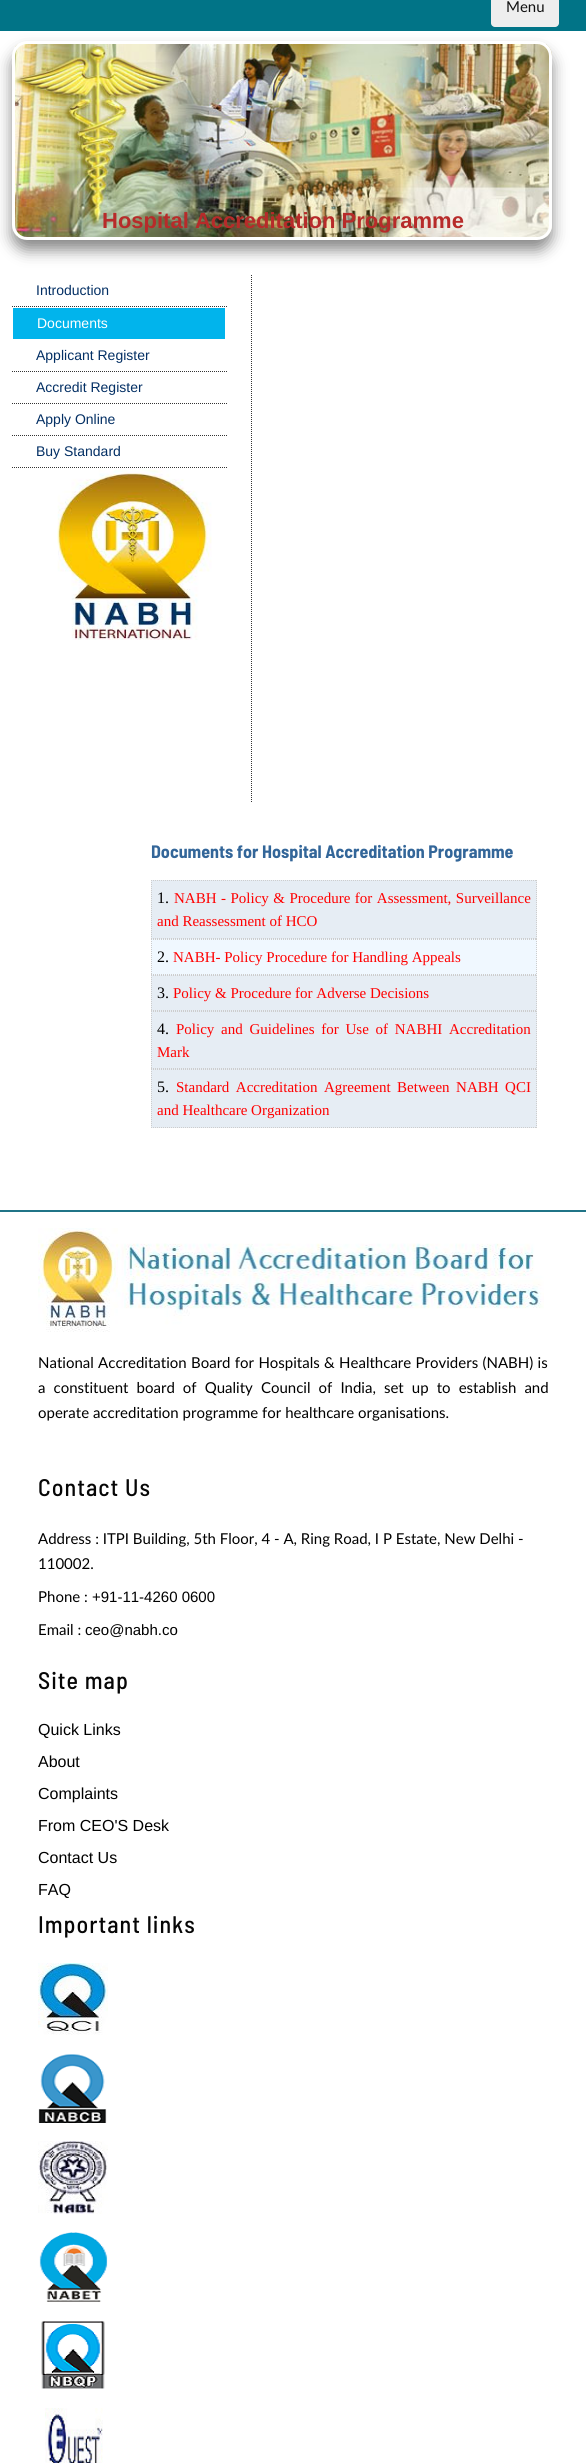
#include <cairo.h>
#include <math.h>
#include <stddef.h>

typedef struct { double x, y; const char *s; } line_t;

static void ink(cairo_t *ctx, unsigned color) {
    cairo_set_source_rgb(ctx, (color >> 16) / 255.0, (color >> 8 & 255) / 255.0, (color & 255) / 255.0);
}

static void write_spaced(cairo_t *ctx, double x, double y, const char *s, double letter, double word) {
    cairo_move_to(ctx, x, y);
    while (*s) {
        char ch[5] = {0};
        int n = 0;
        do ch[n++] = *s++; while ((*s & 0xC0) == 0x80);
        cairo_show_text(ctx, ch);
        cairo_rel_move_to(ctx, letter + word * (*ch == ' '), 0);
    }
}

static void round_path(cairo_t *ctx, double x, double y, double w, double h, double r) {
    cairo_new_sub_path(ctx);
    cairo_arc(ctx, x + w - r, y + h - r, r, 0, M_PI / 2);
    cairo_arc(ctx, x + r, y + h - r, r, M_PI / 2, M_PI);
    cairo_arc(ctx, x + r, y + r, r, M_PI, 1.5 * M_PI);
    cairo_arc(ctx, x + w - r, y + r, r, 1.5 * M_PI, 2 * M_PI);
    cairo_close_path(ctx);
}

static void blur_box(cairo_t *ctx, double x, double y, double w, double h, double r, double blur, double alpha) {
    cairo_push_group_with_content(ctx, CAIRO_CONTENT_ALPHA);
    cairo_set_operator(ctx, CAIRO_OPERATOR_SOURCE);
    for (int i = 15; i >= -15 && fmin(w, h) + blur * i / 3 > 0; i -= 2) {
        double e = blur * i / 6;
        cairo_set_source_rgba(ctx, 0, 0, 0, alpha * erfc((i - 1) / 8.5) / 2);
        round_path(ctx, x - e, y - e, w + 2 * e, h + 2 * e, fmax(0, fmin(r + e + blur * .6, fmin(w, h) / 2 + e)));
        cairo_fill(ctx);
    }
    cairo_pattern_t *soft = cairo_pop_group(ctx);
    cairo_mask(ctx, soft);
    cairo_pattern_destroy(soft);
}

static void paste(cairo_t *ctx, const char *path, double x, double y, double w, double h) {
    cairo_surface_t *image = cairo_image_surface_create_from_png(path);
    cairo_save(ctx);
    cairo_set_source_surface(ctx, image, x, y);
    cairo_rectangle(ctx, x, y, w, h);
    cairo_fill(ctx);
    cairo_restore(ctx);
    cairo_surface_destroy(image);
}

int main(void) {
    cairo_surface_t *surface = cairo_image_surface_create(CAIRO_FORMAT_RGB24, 586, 2463);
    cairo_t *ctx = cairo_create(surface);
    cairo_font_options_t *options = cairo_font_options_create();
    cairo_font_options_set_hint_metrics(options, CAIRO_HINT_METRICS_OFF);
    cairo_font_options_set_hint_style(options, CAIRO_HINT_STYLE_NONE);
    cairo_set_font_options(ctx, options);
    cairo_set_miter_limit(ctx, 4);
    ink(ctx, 0xFFFFFF);
    cairo_paint(ctx);
    ink(ctx, 0x017487);
    cairo_rectangle(ctx, 0, 0, 586, 31);
    cairo_fill(ctx);
    ink(ctx, 0xEEEEEE);
    round_path(ctx, 491, -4, 68, 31, 4);
    cairo_fill(ctx);
    cairo_select_font_face(ctx, "Lato", CAIRO_FONT_SLANT_NORMAL, CAIRO_FONT_WEIGHT_NORMAL);
    cairo_set_font_size(ctx, 15);
    ink(ctx, 0x111111);
    cairo_move_to(ctx, 506, 12);
    cairo_show_text(ctx, "Menu");
    ink(ctx, 0x888888);
    blur_box(ctx, 12, 51, 540, 199, 15, 7.5, 1);
    paste(ctx, "media/1.png", 15, 44, 537, 193);
    round_path(ctx, 13.5, 42.5, 537, 196, 13.5);
    ink(ctx, 0xFFFFFF);
    cairo_set_line_width(ctx, 3);
    cairo_stroke(ctx);
    cairo_select_font_face(ctx, "Liberation Sans", CAIRO_FONT_SLANT_NORMAL, CAIRO_FONT_WEIGHT_BOLD);
    cairo_set_font_size(ctx, 22);
    ink(ctx, 0xB72B2A);
    cairo_move_to(ctx, 102, 228);
    cairo_show_text(ctx, "Hospital Accreditation Programme");
    cairo_new_path(ctx);
    cairo_move_to(ctx, 251.5, 275);
    cairo_line_to(ctx, 251.5, 803);
    ink(ctx, 0x333333);
    cairo_set_line_width(ctx, 1);
    cairo_set_dash(ctx, (double[]){1, 1}, 2, 0);
    cairo_stroke(ctx);
    cairo_new_path(ctx);
    cairo_move_to(ctx, 12, 306.5);
    cairo_line_to(ctx, 227, 306.5);
    cairo_stroke(ctx);
    cairo_select_font_face(ctx, "Liberation Sans", CAIRO_FONT_SLANT_NORMAL, CAIRO_FONT_WEIGHT_NORMAL);
    cairo_set_font_size(ctx, 14);
    ink(ctx, 0x032F64);
    cairo_move_to(ctx, 36, 295);
    cairo_show_text(ctx, "Introduction");
    ink(ctx, 0x01B4EC);
    cairo_rectangle(ctx, 13, 308, 212, 31);
    cairo_fill(ctx);
    ink(ctx, 0xFFFFFF);
    cairo_move_to(ctx, 37, 328);
    cairo_show_text(ctx, "Documents");
    cairo_new_path(ctx);
    cairo_move_to(ctx, 12, 371.5);
    cairo_line_to(ctx, 227, 371.5);
    ink(ctx, 0x333333);
    cairo_stroke(ctx);
    ink(ctx, 0x032F64);
    cairo_move_to(ctx, 36, 360);
    cairo_show_text(ctx, "Applicant Register");
    cairo_new_path(ctx);
    cairo_move_to(ctx, 12, 403.5);
    cairo_line_to(ctx, 227, 403.5);
    ink(ctx, 0x333333);
    cairo_stroke(ctx);
    ink(ctx, 0x032F64);
    cairo_move_to(ctx, 36, 392);
    cairo_show_text(ctx, "Accredit Register");
    cairo_new_path(ctx);
    cairo_move_to(ctx, 12, 435.5);
    cairo_line_to(ctx, 227, 435.5);
    ink(ctx, 0x333333);
    cairo_stroke(ctx);
    ink(ctx, 0x032F64);
    cairo_move_to(ctx, 36, 424);
    cairo_show_text(ctx, "Apply Online");
    cairo_new_path(ctx);
    cairo_move_to(ctx, 12, 467.5);
    cairo_line_to(ctx, 227, 467.5);
    ink(ctx, 0x333333);
    cairo_stroke(ctx);
    ink(ctx, 0x032F64);
    cairo_move_to(ctx, 36, 456);
    cairo_show_text(ctx, "Buy Standard");
    paste(ctx, "media/2.png", 57, 468, 155, 172);
    cairo_select_font_face(ctx, "Barlow Semi Condensed", CAIRO_FONT_SLANT_NORMAL, CAIRO_FONT_WEIGHT_BOLD);
    cairo_set_font_size(ctx, 18);
    ink(ctx, 0x336699);
    cairo_move_to(ctx, 151, 858);
    cairo_show_text(ctx, "Documents for Hospital Accreditation Programme");
    ink(ctx, 0xE6EDF4);
    cairo_rectangle(ctx, 151, 880, 386, 59);
    cairo_fill(ctx);
    cairo_new_path(ctx);
    cairo_move_to(ctx, 151, 880.5);
    cairo_line_to(ctx, 537, 880.5);
    ink(ctx, 0xCDCDCD);
    cairo_stroke(ctx);
    cairo_new_path(ctx);
    cairo_move_to(ctx, 536.5, 880);
    cairo_line_to(ctx, 536.5, 939);
    cairo_stroke(ctx);
    cairo_new_path(ctx);
    cairo_move_to(ctx, 151, 938.5);
    cairo_line_to(ctx, 537, 938.5);
    cairo_stroke(ctx);
    cairo_new_path(ctx);
    cairo_move_to(ctx, 151.5, 880);
    cairo_line_to(ctx, 151.5, 939);
    cairo_stroke(ctx);
    cairo_select_font_face(ctx, "Liberation Serif", CAIRO_FONT_SLANT_NORMAL, CAIRO_FONT_WEIGHT_NORMAL);
    cairo_set_font_size(ctx, 16);
    ink(ctx, 0x000000);
    cairo_move_to(ctx, 157, 903);
    cairo_show_text(ctx, "1.");
    cairo_set_font_size(ctx, 15);
    ink(ctx, 0xFF0000);
    write_spaced(ctx, 174, 903, "NABH - Policy & Procedure for Assessment, Surveillance", 0, 0.75);
    cairo_move_to(ctx, 157, 926);
    cairo_show_text(ctx, "and Reassessment of HCO");
    ink(ctx, 0xF0F8FF);
    cairo_rectangle(ctx, 151, 939, 386, 36);
    cairo_fill(ctx);
    cairo_new_path(ctx);
    cairo_move_to(ctx, 151, 939.5);
    cairo_line_to(ctx, 537, 939.5);
    ink(ctx, 0xCDCDCD);
    cairo_stroke(ctx);
    cairo_new_path(ctx);
    cairo_move_to(ctx, 536.5, 939);
    cairo_line_to(ctx, 536.5, 975);
    cairo_stroke(ctx);
    cairo_new_path(ctx);
    cairo_move_to(ctx, 151, 974.5);
    cairo_line_to(ctx, 537, 974.5);
    cairo_stroke(ctx);
    cairo_new_path(ctx);
    cairo_move_to(ctx, 151.5, 939);
    cairo_line_to(ctx, 151.5, 975);
    cairo_stroke(ctx);
    cairo_set_font_size(ctx, 16);
    ink(ctx, 0x000000);
    cairo_move_to(ctx, 157, 962);
    cairo_show_text(ctx, "2.");
    cairo_set_font_size(ctx, 15);
    ink(ctx, 0xFF0000);
    cairo_move_to(ctx, 173, 962);
    cairo_show_text(ctx, "NABH- Policy Procedure for Handling Appeals");
    ink(ctx, 0xE6EDF4);
    cairo_rectangle(ctx, 151, 975, 386, 153);
    cairo_fill(ctx);
    cairo_new_path(ctx);
    cairo_move_to(ctx, 151, 975.5);
    cairo_line_to(ctx, 537, 975.5);
    ink(ctx, 0xCDCDCD);
    cairo_stroke(ctx);
    cairo_new_path(ctx);
    cairo_move_to(ctx, 536.5, 975);
    cairo_line_to(ctx, 536.5, 1011);
    cairo_stroke(ctx);
    cairo_new_path(ctx);
    cairo_move_to(ctx, 151, 1010.5);
    cairo_line_to(ctx, 537, 1010.5);
    cairo_stroke(ctx);
    cairo_new_path(ctx);
    cairo_move_to(ctx, 151.5, 975);
    cairo_line_to(ctx, 151.5, 1011);
    cairo_stroke(ctx);
    cairo_set_font_size(ctx, 16);
    ink(ctx, 0x000000);
    cairo_move_to(ctx, 157, 998);
    cairo_show_text(ctx, "3.");
    cairo_set_font_size(ctx, 15);
    ink(ctx, 0xFF0000);
    cairo_move_to(ctx, 173, 998);
    cairo_show_text(ctx, "Policy & Procedure for Adverse Decisions");
    cairo_new_path(ctx);
    cairo_move_to(ctx, 151, 1011.5);
    cairo_line_to(ctx, 537, 1011.5);
    ink(ctx, 0xCDCDCD);
    cairo_stroke(ctx);
    cairo_new_path(ctx);
    cairo_move_to(ctx, 536.5, 1011);
    cairo_line_to(ctx, 536.5, 1069);
    cairo_stroke(ctx);
    cairo_new_path(ctx);
    cairo_move_to(ctx, 151, 1068.5);
    cairo_line_to(ctx, 537, 1068.5);
    cairo_stroke(ctx);
    cairo_new_path(ctx);
    cairo_move_to(ctx, 151.5, 1011);
    cairo_line_to(ctx, 151.5, 1069);
    cairo_stroke(ctx);
    cairo_set_font_size(ctx, 16);
    ink(ctx, 0x000000);
    cairo_move_to(ctx, 157, 1034);
    cairo_show_text(ctx, "4.");
    cairo_set_font_size(ctx, 15);
    ink(ctx, 0xFF0000);
    write_spaced(ctx, 176, 1034, "Policy and Guidelines for Use of NABHI Accreditation", 0, 3);
    cairo_move_to(ctx, 157, 1057);
    cairo_show_text(ctx, "Mark");
    cairo_new_path(ctx);
    cairo_move_to(ctx, 151, 1069.5);
    cairo_line_to(ctx, 537, 1069.5);
    ink(ctx, 0xCDCDCD);
    cairo_stroke(ctx);
    cairo_new_path(ctx);
    cairo_move_to(ctx, 536.5, 1069);
    cairo_line_to(ctx, 536.5, 1128);
    cairo_stroke(ctx);
    cairo_new_path(ctx);
    cairo_move_to(ctx, 151, 1127.5);
    cairo_line_to(ctx, 537, 1127.5);
    cairo_stroke(ctx);
    cairo_new_path(ctx);
    cairo_move_to(ctx, 151.5, 1069);
    cairo_line_to(ctx, 151.5, 1128);
    cairo_stroke(ctx);
    cairo_set_font_size(ctx, 16);
    ink(ctx, 0x000000);
    cairo_move_to(ctx, 157, 1092);
    cairo_show_text(ctx, "5.");
    cairo_set_font_size(ctx, 15);
    ink(ctx, 0xFF0000);
    write_spaced(ctx, 176, 1092, "Standard Accreditation Agreement Between NABH QCI", 0, 2.75);
    cairo_move_to(ctx, 157, 1115);
    cairo_show_text(ctx, "and Healthcare Organization");
    ink(ctx, 0x207487);
    cairo_rectangle(ctx, 0, 1210, 586, 2);
    cairo_fill(ctx);
    paste(ctx, "media/3.png", 38, 1228, 506, 104);
    cairo_select_font_face(ctx, "Lato", CAIRO_FONT_SLANT_NORMAL, CAIRO_FONT_WEIGHT_NORMAL);
    ink(ctx, 0x000000);
    write_spaced(ctx, 38, 1368, "National Accreditation Board for Hospitals & Healthcare Providers (NABH) is", 0, 0.5);
    write_spaced(ctx, 38, 1393, "a constituent board of Quality Council of India, set up to establish and", 0, 4.25);
    cairo_move_to(ctx, 38, 1418);
    cairo_show_text(ctx, "operate accreditation programme for healthcare organisations.");
    cairo_select_font_face(ctx, "Barlow Semi Condensed Medium", CAIRO_FONT_SLANT_NORMAL, CAIRO_FONT_WEIGHT_NORMAL);
    cairo_set_font_size(ctx, 24);
    ink(ctx, 0x060606);
    write_spaced(ctx, 38, 1496, "Contact Us", 1, 0);
    cairo_select_font_face(ctx, "Lato", CAIRO_FONT_SLANT_NORMAL, CAIRO_FONT_WEIGHT_NORMAL);
    cairo_set_font_size(ctx, 15);
    ink(ctx, 0x000000);
    {
        static const line_t items[] = {
            {38, 1544, "Address : ITPI Building, 5th Floor, 4 - A, Ring Road, I P Estate, New Delhi -"},
            {38, 1569, "110002."},
            {38, 1602, "Phone :"},
        };
        for (size_t i = 0; i < sizeof items / sizeof *items; i++) {
            cairo_move_to(ctx, items[i].x, items[i].y);
            cairo_show_text(ctx, items[i].s);
        }
    }
    cairo_select_font_face(ctx, "Liberation Sans", CAIRO_FONT_SLANT_NORMAL, CAIRO_FONT_WEIGHT_NORMAL);
    cairo_move_to(ctx, 92, 1602);
    cairo_show_text(ctx, "+91-11-4260 0600");
    cairo_select_font_face(ctx, "Lato", CAIRO_FONT_SLANT_NORMAL, CAIRO_FONT_WEIGHT_NORMAL);
    cairo_move_to(ctx, 38, 1635);
    cairo_show_text(ctx, "Email :");
    cairo_select_font_face(ctx, "Liberation Sans", CAIRO_FONT_SLANT_NORMAL, CAIRO_FONT_WEIGHT_NORMAL);
    cairo_move_to(ctx, 85, 1635);
    cairo_show_text(ctx, "ceo@nabh.co");
    cairo_select_font_face(ctx, "Barlow Semi Condensed Medium", CAIRO_FONT_SLANT_NORMAL, CAIRO_FONT_WEIGHT_NORMAL);
    cairo_set_font_size(ctx, 24);
    ink(ctx, 0x060606);
    write_spaced(ctx, 38, 1689, "Site map", 1, 0);
    cairo_select_font_face(ctx, "Liberation Sans", CAIRO_FONT_SLANT_NORMAL, CAIRO_FONT_WEIGHT_NORMAL);
    cairo_set_font_size(ctx, 16);
    ink(ctx, 0x000000);
    {
        static const line_t items[] = {
            {38, 1735, "Quick Links"},
            {38, 1767, "About"},
            {38, 1799, "Complaints"},
            {38, 1831, "From CEO'S Desk"},
            {38, 1863, "Contact Us"},
            {38, 1895, "FAQ"},
        };
        for (size_t i = 0; i < sizeof items / sizeof *items; i++) {
            cairo_move_to(ctx, items[i].x, items[i].y);
            cairo_show_text(ctx, items[i].s);
        }
    }
    cairo_select_font_face(ctx, "Barlow Semi Condensed Medium", CAIRO_FONT_SLANT_NORMAL, CAIRO_FONT_WEIGHT_NORMAL);
    cairo_set_font_size(ctx, 24);
    ink(ctx, 0x060606);
    write_spaced(ctx, 38, 1933, "Important links", 1, 0);
    paste(ctx, "media/4.png", 38, 1963, 70, 72);
    paste(ctx, "media/5.png", 38, 2054, 69, 69);
    paste(ctx, "media/6.png", 38, 2141, 70, 73);
    paste(ctx, "media/7.png", 39, 2232, 69, 70);
    paste(ctx, "media/8.png", 41, 2321, 64, 68);
    paste(ctx, "media/9.png", 45, 2408, 58, 55);
    cairo_surface_write_to_png(surface, "image.png");
    cairo_font_options_destroy(options);
    cairo_destroy(ctx);
    cairo_surface_destroy(surface);
    return 0;
}
